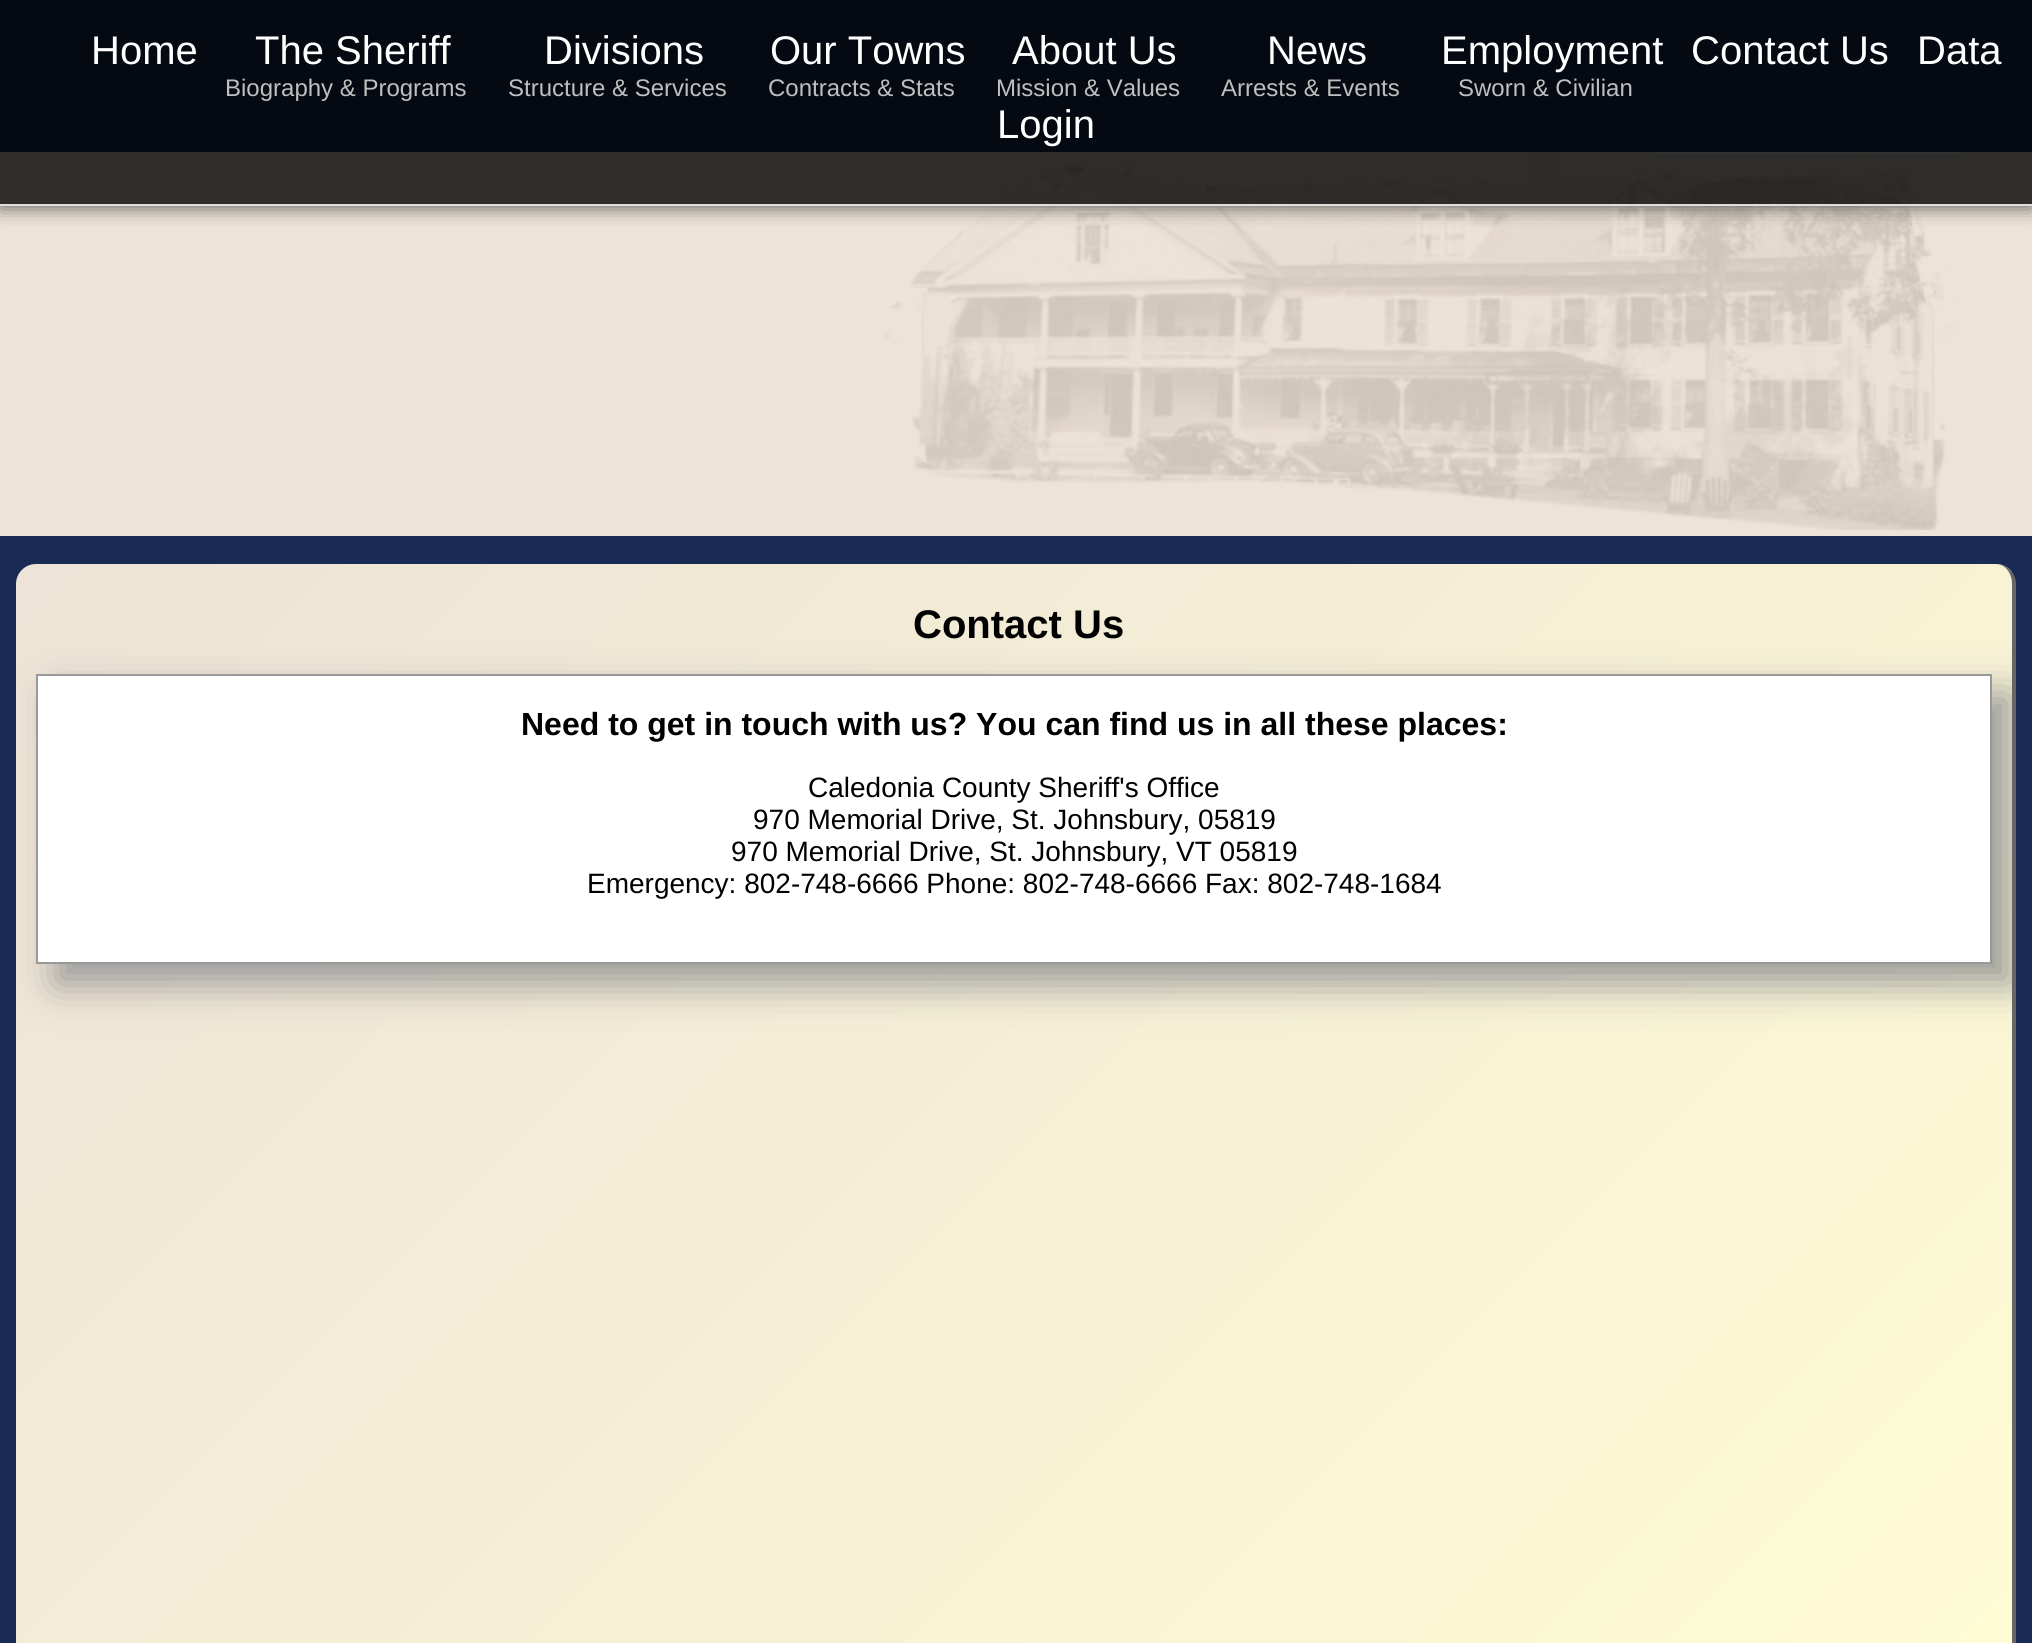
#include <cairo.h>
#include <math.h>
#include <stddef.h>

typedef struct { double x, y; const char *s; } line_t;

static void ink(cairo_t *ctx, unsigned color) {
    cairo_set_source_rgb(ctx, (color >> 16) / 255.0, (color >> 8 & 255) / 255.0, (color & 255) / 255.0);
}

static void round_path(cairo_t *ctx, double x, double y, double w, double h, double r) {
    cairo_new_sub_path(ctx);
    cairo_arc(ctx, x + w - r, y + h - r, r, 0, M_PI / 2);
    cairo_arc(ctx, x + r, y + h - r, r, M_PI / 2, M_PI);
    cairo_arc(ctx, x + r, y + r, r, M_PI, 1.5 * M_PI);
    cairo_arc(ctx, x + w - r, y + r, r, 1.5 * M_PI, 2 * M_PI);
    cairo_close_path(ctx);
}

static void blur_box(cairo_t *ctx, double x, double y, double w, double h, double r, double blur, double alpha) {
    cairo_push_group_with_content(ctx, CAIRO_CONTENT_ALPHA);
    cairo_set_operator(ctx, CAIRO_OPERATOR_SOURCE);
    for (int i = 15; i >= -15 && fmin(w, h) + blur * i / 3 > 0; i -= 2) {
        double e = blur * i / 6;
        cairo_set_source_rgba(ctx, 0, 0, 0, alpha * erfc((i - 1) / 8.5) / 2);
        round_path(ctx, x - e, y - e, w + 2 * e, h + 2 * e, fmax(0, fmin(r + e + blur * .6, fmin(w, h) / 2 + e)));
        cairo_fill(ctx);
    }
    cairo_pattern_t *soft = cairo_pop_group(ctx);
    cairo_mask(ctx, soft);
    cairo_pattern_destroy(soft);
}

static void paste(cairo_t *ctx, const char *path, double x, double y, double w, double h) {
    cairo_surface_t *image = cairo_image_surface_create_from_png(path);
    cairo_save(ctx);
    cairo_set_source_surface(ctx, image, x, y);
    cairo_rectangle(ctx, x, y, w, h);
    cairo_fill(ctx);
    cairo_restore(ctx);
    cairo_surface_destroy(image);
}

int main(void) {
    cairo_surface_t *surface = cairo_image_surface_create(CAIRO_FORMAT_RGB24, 2032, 1643);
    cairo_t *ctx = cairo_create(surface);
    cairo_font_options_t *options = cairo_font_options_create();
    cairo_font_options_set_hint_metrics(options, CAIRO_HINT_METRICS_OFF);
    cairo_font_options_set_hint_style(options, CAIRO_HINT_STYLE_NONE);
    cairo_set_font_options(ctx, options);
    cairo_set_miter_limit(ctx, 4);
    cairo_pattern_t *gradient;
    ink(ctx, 0x192B55);
    cairo_paint(ctx);
    ink(ctx, 0xEDE3D6);
    cairo_rectangle(ctx, 0, 152, 2032, 384);
    cairo_fill(ctx);
    paste(ctx, "media/1.png", 884, 152, 1076, 378);
    cairo_save(ctx);
    cairo_rectangle(ctx, 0, 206, 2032, 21);
    cairo_clip(ctx);
    ink(ctx, 0x4D4D4D);
    blur_box(ctx, 0, 0, 2032, 206, 0, 10, 1);
    cairo_restore(ctx);
    cairo_set_source_rgba(ctx, 0, 0, 0, 0.8);
    cairo_rectangle(ctx, 0, 0, 2032, 204);
    cairo_fill(ctx);
    ink(ctx, 0xDFDFDF);
    cairo_rectangle(ctx, 0, 204, 2032, 2);
    cairo_fill(ctx);
    cairo_select_font_face(ctx, "Liberation Sans", CAIRO_FONT_SLANT_NORMAL, CAIRO_FONT_WEIGHT_NORMAL);
    cairo_set_font_size(ctx, 40);
    ink(ctx, 0xFFFFFF);
    cairo_move_to(ctx, 91, 64);
    cairo_show_text(ctx, "Home");
    cairo_move_to(ctx, 255, 64);
    cairo_show_text(ctx, "The Sheriff");
    cairo_set_font_size(ctx, 24);
    ink(ctx, 0xBFBFBF);
    cairo_move_to(ctx, 225, 96);
    cairo_show_text(ctx, "Biography & Programs");
    cairo_set_font_size(ctx, 40);
    ink(ctx, 0xFFFFFF);
    cairo_move_to(ctx, 544, 64);
    cairo_show_text(ctx, "Divisions");
    cairo_set_font_size(ctx, 24);
    ink(ctx, 0xBFBFBF);
    cairo_move_to(ctx, 508, 96);
    cairo_show_text(ctx, "Structure & Services");
    cairo_set_font_size(ctx, 40);
    ink(ctx, 0xFFFFFF);
    cairo_move_to(ctx, 770, 64);
    cairo_show_text(ctx, "Our Towns");
    cairo_set_font_size(ctx, 24);
    ink(ctx, 0xBFBFBF);
    cairo_move_to(ctx, 768, 96);
    cairo_show_text(ctx, "Contracts & Stats");
    cairo_set_font_size(ctx, 40);
    ink(ctx, 0xFFFFFF);
    cairo_move_to(ctx, 1012, 64);
    cairo_show_text(ctx, "About Us");
    cairo_set_font_size(ctx, 24);
    ink(ctx, 0xBFBFBF);
    cairo_move_to(ctx, 996, 96);
    cairo_show_text(ctx, "Mission & Values");
    cairo_set_font_size(ctx, 40);
    ink(ctx, 0xFFFFFF);
    cairo_move_to(ctx, 1267, 64);
    cairo_show_text(ctx, "News");
    cairo_set_font_size(ctx, 24);
    ink(ctx, 0xBFBFBF);
    cairo_move_to(ctx, 1221, 96);
    cairo_show_text(ctx, "Arrests & Events");
    cairo_set_font_size(ctx, 40);
    ink(ctx, 0xFFFFFF);
    cairo_move_to(ctx, 1441, 64);
    cairo_show_text(ctx, "Employment");
    cairo_set_font_size(ctx, 24);
    ink(ctx, 0xBFBFBF);
    cairo_move_to(ctx, 1458, 96);
    cairo_show_text(ctx, "Sworn & Civilian");
    cairo_set_font_size(ctx, 40);
    ink(ctx, 0xFFFFFF);
    {
        static const line_t items[] = {
            {1691, 64, "Contact Us"},
            {1917, 64, "Data"},
            {997, 138, "Login"},
        };
        for (size_t i = 0; i < sizeof items / sizeof *items; i++) {
            cairo_move_to(ctx, items[i].x, items[i].y);
            cairo_show_text(ctx, items[i].s);
        }
    }
    cairo_save(ctx);
    round_path(ctx, 16, 564, 2000, 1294, 20);
    cairo_clip(ctx);
    gradient = cairo_pattern_create_linear(193, 388, 1836, 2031);
    cairo_pattern_add_color_stop_rgba(gradient, 0, 0.929, 0.89, 0.839, 1);
    cairo_pattern_add_color_stop_rgba(gradient, 1, 1, 0.992, 0.835, 1);
    cairo_set_source(ctx, gradient);
    cairo_pattern_destroy(gradient);
    cairo_new_path(ctx);
    cairo_move_to(ctx, 36, 564);
    cairo_line_to(ctx, 2012, 564);
    cairo_line_to(ctx, 2012, 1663);
    cairo_line_to(ctx, 16, 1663);
    cairo_line_to(ctx, 16, 584);
    cairo_curve_to(ctx, 16, 573, 25, 564, 36, 564);
    cairo_close_path(ctx);
    cairo_fill(ctx);
    cairo_restore(ctx);
    ink(ctx, 0x666666);
    cairo_set_fill_rule(ctx, CAIRO_FILL_RULE_EVEN_ODD);
    cairo_new_path(ctx);
    cairo_move_to(ctx, 36, 564);
    cairo_line_to(ctx, 1996, 564);
    cairo_curve_to(ctx, 2007, 564, 2016, 573, 2016, 584);
    cairo_line_to(ctx, 2016, 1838);
    cairo_curve_to(ctx, 2016, 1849, 2007, 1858, 1996, 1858);
    cairo_line_to(ctx, 36, 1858);
    cairo_curve_to(ctx, 25, 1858, 16, 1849, 16, 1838);
    cairo_line_to(ctx, 16, 584);
    cairo_curve_to(ctx, 16, 573, 25, 564, 36, 564);
    cairo_close_path(ctx);
    cairo_move_to(ctx, 36, 564);
    cairo_line_to(ctx, 1996, 564);
    cairo_curve_to(ctx, 2005, 564, 2012, 573, 2012, 584);
    cairo_line_to(ctx, 2012, 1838);
    cairo_curve_to(ctx, 2012, 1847, 2005, 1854, 1996, 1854);
    cairo_line_to(ctx, 36, 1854);
    cairo_curve_to(ctx, 25, 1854, 16, 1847, 16, 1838);
    cairo_line_to(ctx, 16, 584);
    cairo_curve_to(ctx, 16, 573, 25, 564, 36, 564);
    cairo_close_path(ctx);
    cairo_fill(ctx);
    cairo_save(ctx);
    cairo_set_fill_rule(ctx, CAIRO_FILL_RULE_WINDING);
    cairo_new_path(ctx);
    cairo_move_to(ctx, 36, 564);
    cairo_line_to(ctx, 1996, 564);
    cairo_curve_to(ctx, 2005, 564, 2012, 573, 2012, 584);
    cairo_line_to(ctx, 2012, 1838);
    cairo_curve_to(ctx, 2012, 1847, 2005, 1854, 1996, 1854);
    cairo_line_to(ctx, 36, 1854);
    cairo_curve_to(ctx, 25, 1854, 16, 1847, 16, 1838);
    cairo_line_to(ctx, 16, 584);
    cairo_curve_to(ctx, 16, 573, 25, 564, 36, 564);
    cairo_close_path(ctx);
    cairo_clip(ctx);
    ink(ctx, 0x999999);
    blur_box(ctx, 56, 694, 1956, 290, 0, 20, 1);
    cairo_restore(ctx);
    cairo_select_font_face(ctx, "Liberation Sans", CAIRO_FONT_SLANT_NORMAL, CAIRO_FONT_WEIGHT_BOLD);
    ink(ctx, 0x000000);
    cairo_move_to(ctx, 913, 638);
    cairo_show_text(ctx, "Contact Us");
    ink(ctx, 0xFFFFFF);
    cairo_rectangle(ctx, 37, 675, 1954, 288);
    cairo_fill_preserve(ctx);
    ink(ctx, 0x999999);
    cairo_stroke(ctx);
    cairo_set_font_size(ctx, 32);
    ink(ctx, 0x000000);
    cairo_move_to(ctx, 521, 735);
    cairo_show_text(ctx, "Need to get in touch with us? You can find us in all these places:");
    cairo_select_font_face(ctx, "Liberation Sans", CAIRO_FONT_SLANT_NORMAL, CAIRO_FONT_WEIGHT_NORMAL);
    cairo_set_font_size(ctx, 28);
    {
        static const line_t items[] = {
            {808, 797, "Caledonia County Sheriff's Office"},
            {753, 829, "970 Memorial Drive, St. Johnsbury, 05819"},
            {731, 861, "970 Memorial Drive, St. Johnsbury, VT 05819"},
            {587, 893, "Emergency: 802-748-6666 Phone: 802-748-6666 Fax: 802-748-1684"},
        };
        for (size_t i = 0; i < sizeof items / sizeof *items; i++) {
            cairo_move_to(ctx, items[i].x, items[i].y);
            cairo_show_text(ctx, items[i].s);
        }
    }
    cairo_surface_write_to_png(surface, "image.png");
    cairo_font_options_destroy(options);
    cairo_destroy(ctx);
    cairo_surface_destroy(surface);
    return 0;
}
